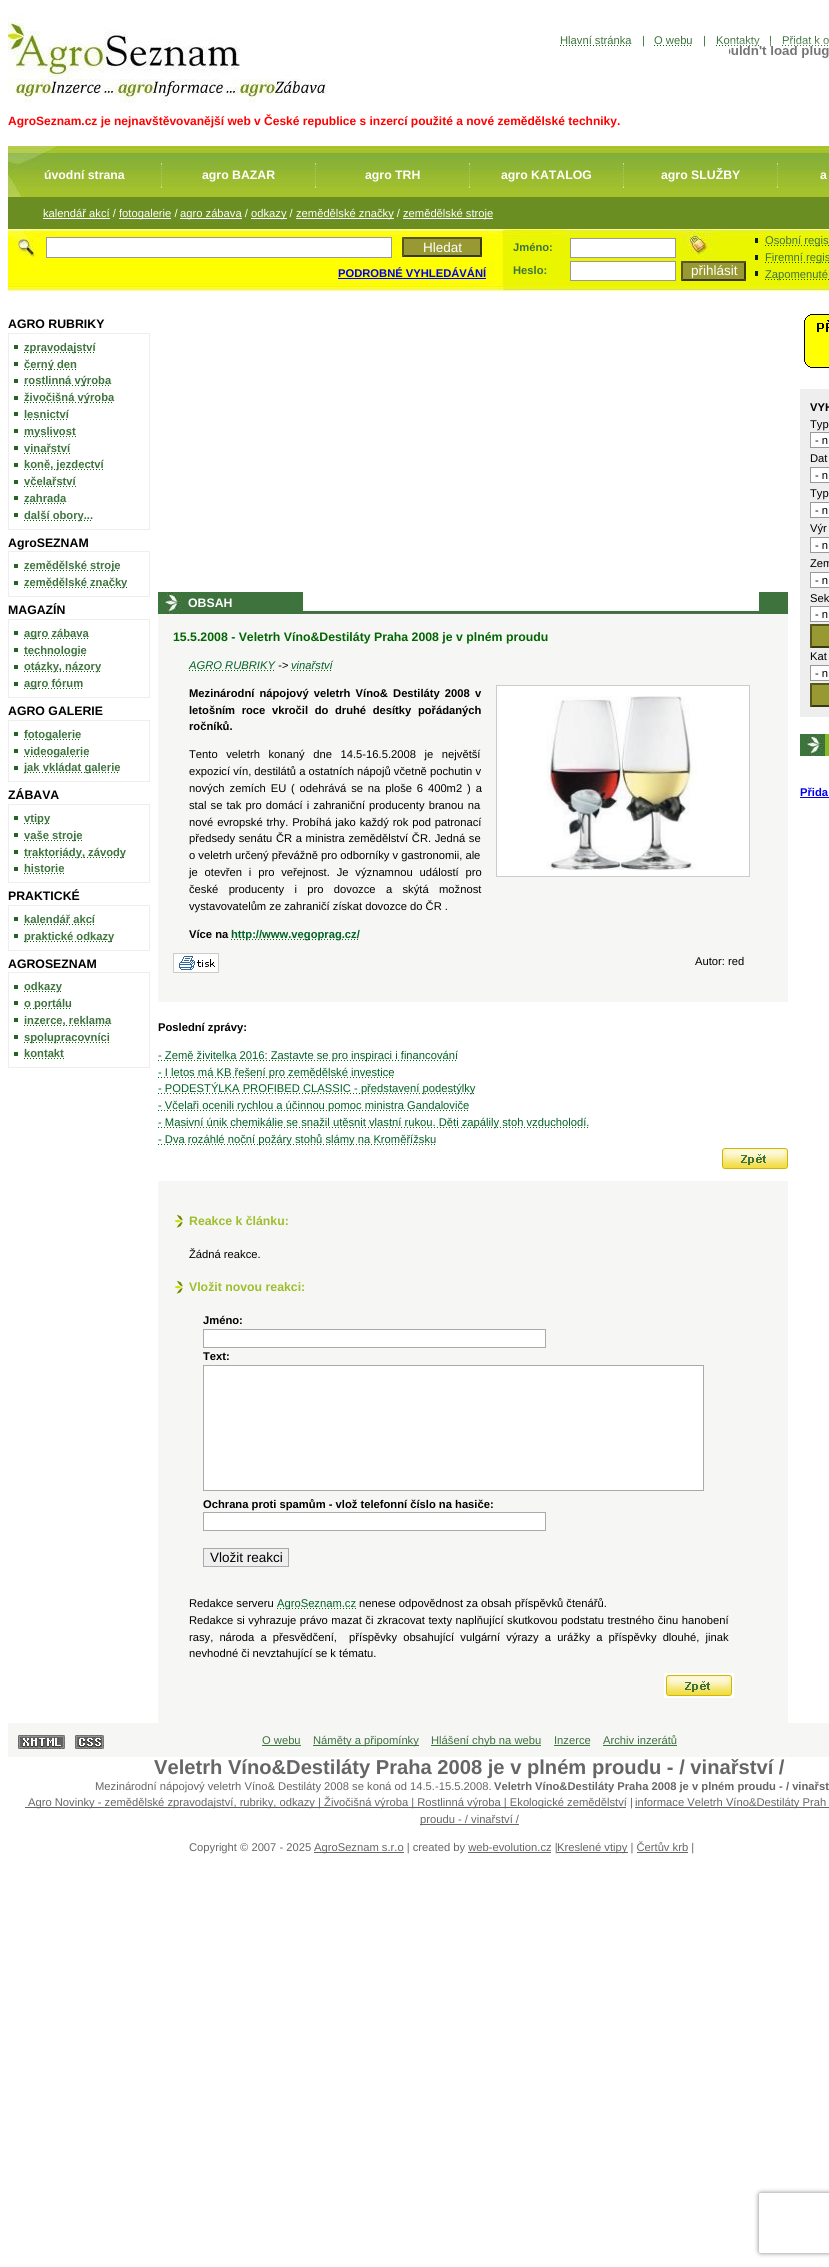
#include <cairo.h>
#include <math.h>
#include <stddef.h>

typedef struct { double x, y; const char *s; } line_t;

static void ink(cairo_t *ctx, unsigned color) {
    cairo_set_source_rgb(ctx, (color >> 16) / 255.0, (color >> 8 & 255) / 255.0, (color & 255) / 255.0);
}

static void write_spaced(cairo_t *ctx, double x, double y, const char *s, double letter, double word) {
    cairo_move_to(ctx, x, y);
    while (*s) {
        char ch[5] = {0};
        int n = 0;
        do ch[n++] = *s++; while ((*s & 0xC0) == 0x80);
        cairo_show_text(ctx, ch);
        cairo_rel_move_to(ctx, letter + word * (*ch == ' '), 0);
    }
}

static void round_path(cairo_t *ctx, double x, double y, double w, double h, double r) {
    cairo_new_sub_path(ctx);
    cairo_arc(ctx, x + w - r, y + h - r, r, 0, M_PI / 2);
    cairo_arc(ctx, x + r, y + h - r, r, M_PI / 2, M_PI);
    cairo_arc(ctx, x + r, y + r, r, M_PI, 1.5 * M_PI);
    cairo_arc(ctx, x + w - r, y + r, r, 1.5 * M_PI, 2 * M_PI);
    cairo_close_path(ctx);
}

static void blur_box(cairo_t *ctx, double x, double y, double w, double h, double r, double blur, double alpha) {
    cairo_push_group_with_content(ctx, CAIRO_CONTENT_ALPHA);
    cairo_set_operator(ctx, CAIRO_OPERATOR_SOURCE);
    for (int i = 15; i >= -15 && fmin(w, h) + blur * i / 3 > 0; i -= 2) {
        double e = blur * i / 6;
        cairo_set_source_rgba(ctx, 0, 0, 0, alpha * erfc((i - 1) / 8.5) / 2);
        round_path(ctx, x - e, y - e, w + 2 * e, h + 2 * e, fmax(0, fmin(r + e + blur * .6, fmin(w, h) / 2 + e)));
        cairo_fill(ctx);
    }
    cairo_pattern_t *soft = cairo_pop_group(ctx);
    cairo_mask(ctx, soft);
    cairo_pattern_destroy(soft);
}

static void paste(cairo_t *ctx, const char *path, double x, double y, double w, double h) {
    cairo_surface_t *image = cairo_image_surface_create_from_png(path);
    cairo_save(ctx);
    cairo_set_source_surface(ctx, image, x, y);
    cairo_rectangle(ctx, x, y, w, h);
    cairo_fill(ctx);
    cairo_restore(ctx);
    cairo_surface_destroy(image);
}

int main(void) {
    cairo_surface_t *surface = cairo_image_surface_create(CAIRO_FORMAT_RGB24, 829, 2267);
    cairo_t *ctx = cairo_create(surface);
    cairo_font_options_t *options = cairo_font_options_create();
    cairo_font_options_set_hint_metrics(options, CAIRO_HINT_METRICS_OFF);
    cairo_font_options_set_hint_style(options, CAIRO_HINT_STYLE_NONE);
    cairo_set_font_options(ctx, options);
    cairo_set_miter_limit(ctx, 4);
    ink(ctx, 0xFFFFFF);
    cairo_paint(ctx);
    paste(ctx, "media/1.png", 8, 15, 320, 90);
    cairo_select_font_face(ctx, "Liberation Sans", CAIRO_FONT_SLANT_NORMAL, CAIRO_FONT_WEIGHT_NORMAL);
    cairo_set_font_size(ctx, 11.2);
    ink(ctx, 0x3E733E);
    cairo_move_to(ctx, 560, 44);
    cairo_show_text(ctx, "Hlavní stránka");
    paste(ctx, "media/2.png", 560, 45, 70, 1);
    cairo_move_to(ctx, 642, 44);
    cairo_show_text(ctx, "|");
    cairo_move_to(ctx, 654, 44);
    cairo_show_text(ctx, "O webu");
    paste(ctx, "media/3.png", 654, 45, 37, 1);
    cairo_move_to(ctx, 703, 44);
    cairo_show_text(ctx, "|");
    paste(ctx, "media/4.png", 716, 45, 43, 1);
    {
        static const line_t items[] = {
            {716, 44, "Kontakty"},
            {769, 44, "|"},
            {782, 44, "Přidat k o"},
        };
        for (size_t i = 0; i < sizeof items / sizeof *items; i++) {
            cairo_move_to(ctx, items[i].x, items[i].y);
            cairo_show_text(ctx, items[i].s);
        }
    }
    paste(ctx, "media/5.png", 782, 45, 46, 1);
    cairo_select_font_face(ctx, "Liberation Sans", CAIRO_FONT_SLANT_NORMAL, CAIRO_FONT_WEIGHT_BOLD);
    cairo_set_font_size(ctx, 12);
    ink(ctx, 0xFF0000);
    cairo_move_to(ctx, 8, 125);
    cairo_show_text(ctx, "AgroSeznam.cz je nejnavštěvovanější web v České republice s inzercí použité a nové zemědělské techniky.");
    paste(ctx, "media/6.png", 8, 146, 821, 51);
    cairo_set_font_size(ctx, 12.3);
    ink(ctx, 0xFFFFFF);
    cairo_move_to(ctx, 44, 179);
    cairo_show_text(ctx, "úvodní strana");
    paste(ctx, "media/7.png", 161, 163, 1, 25);
    cairo_move_to(ctx, 202, 179);
    cairo_show_text(ctx, "agro BAZAR");
    paste(ctx, "media/7.png", 315, 163, 1, 25);
    cairo_move_to(ctx, 365, 179);
    cairo_show_text(ctx, "agro TRH");
    paste(ctx, "media/7.png", 469, 163, 1, 25);
    cairo_move_to(ctx, 501, 179);
    cairo_show_text(ctx, "agro KATALOG");
    paste(ctx, "media/7.png", 623, 163, 1, 25);
    cairo_move_to(ctx, 661, 179);
    cairo_show_text(ctx, "agro SLUŽBY");
    paste(ctx, "media/7.png", 777, 163, 1, 25);
    cairo_move_to(ctx, 820, 179);
    cairo_show_text(ctx, "a");
    ink(ctx, 0x6B8E23);
    cairo_rectangle(ctx, 8, 197, 821, 32);
    cairo_fill(ctx);
    cairo_select_font_face(ctx, "Liberation Sans", CAIRO_FONT_SLANT_NORMAL, CAIRO_FONT_WEIGHT_NORMAL);
    cairo_set_font_size(ctx, 11.2);
    ink(ctx, 0xFFFFFF);
    cairo_move_to(ctx, 43, 217);
    cairo_show_text(ctx, "kalendář akcí /");
    cairo_rectangle(ctx, 43, 218, 67, 1);
    cairo_fill(ctx);
    cairo_rectangle(ctx, 119, 218, 52, 1);
    cairo_fill(ctx);
    cairo_move_to(ctx, 119, 217);
    cairo_show_text(ctx, "fotogalerie /");
    cairo_rectangle(ctx, 180, 218, 62, 1);
    cairo_fill(ctx);
    cairo_move_to(ctx, 180, 217);
    cairo_show_text(ctx, "agro zábava /");
    cairo_rectangle(ctx, 251, 218, 36, 1);
    cairo_fill(ctx);
    cairo_move_to(ctx, 251, 217);
    cairo_show_text(ctx, "odkazy /");
    cairo_rectangle(ctx, 296, 218, 98, 1);
    cairo_fill(ctx);
    cairo_move_to(ctx, 296, 217);
    cairo_show_text(ctx, "zemědělské značky /");
    cairo_rectangle(ctx, 403, 218, 90, 1);
    cairo_fill(ctx);
    cairo_move_to(ctx, 403, 217);
    cairo_show_text(ctx, "zemědělské stroje");
    paste(ctx, "media/8.png", 8, 229, 821, 62);
    paste(ctx, "media/9.png", 18, 239, 18, 19);
    cairo_rectangle(ctx, 46.5, 237.5, 345, 20);
    cairo_fill_preserve(ctx);
    ink(ctx, 0x999999);
    cairo_set_line_width(ctx, 1);
    cairo_stroke(ctx);
    ink(ctx, 0x999933);
    cairo_rectangle(ctx, 402, 237, 80, 20);
    cairo_fill(ctx);
    ink(ctx, 0x56561D);
    cairo_new_path(ctx);
    cairo_move_to(ctx, 402, 237);
    cairo_line_to(ctx, 482, 237);
    cairo_line_to(ctx, 480, 239);
    cairo_line_to(ctx, 404, 239);
    cairo_close_path(ctx);
    cairo_fill(ctx);
    ink(ctx, 0x393913);
    cairo_new_path(ctx);
    cairo_move_to(ctx, 482, 237);
    cairo_line_to(ctx, 482, 257);
    cairo_line_to(ctx, 480, 255);
    cairo_line_to(ctx, 480, 239);
    cairo_close_path(ctx);
    cairo_fill(ctx);
    cairo_new_path(ctx);
    cairo_move_to(ctx, 482, 257);
    cairo_line_to(ctx, 402, 257);
    cairo_line_to(ctx, 404, 255);
    cairo_line_to(ctx, 480, 255);
    cairo_close_path(ctx);
    cairo_fill(ctx);
    ink(ctx, 0x56561D);
    cairo_new_path(ctx);
    cairo_move_to(ctx, 402, 257);
    cairo_line_to(ctx, 402, 237);
    cairo_line_to(ctx, 404, 239);
    cairo_line_to(ctx, 404, 255);
    cairo_close_path(ctx);
    cairo_fill(ctx);
    cairo_set_font_size(ctx, 13.5);
    ink(ctx, 0xFFFFFF);
    cairo_move_to(ctx, 423, 252);
    cairo_show_text(ctx, "Hledat");
    cairo_select_font_face(ctx, "Liberation Sans", CAIRO_FONT_SLANT_NORMAL, CAIRO_FONT_WEIGHT_BOLD);
    cairo_set_font_size(ctx, 11.2);
    ink(ctx, 0x0000EE);
    cairo_move_to(ctx, 338, 277);
    cairo_show_text(ctx, "PODROBNÉ VYHLEDÁVÁNÍ");
    cairo_rectangle(ctx, 338, 278, 148, 1);
    cairo_fill(ctx);
    ink(ctx, 0x3E733E);
    cairo_move_to(ctx, 513, 251);
    cairo_show_text(ctx, "Jméno:");
    ink(ctx, 0xFFFFFF);
    cairo_rectangle(ctx, 570.5, 238.5, 105, 19);
    cairo_fill_preserve(ctx);
    ink(ctx, 0x999999);
    cairo_stroke(ctx);
    ink(ctx, 0x3E733E);
    cairo_move_to(ctx, 513, 274);
    cairo_show_text(ctx, "Heslo:");
    ink(ctx, 0xFFFFFF);
    cairo_rectangle(ctx, 570.5, 261.5, 105, 19);
    cairo_fill_preserve(ctx);
    ink(ctx, 0x999999);
    cairo_stroke(ctx);
    ink(ctx, 0x999933);
    cairo_rectangle(ctx, 681, 261, 65, 20);
    cairo_fill(ctx);
    ink(ctx, 0x56561D);
    cairo_new_path(ctx);
    cairo_move_to(ctx, 681, 261);
    cairo_line_to(ctx, 746, 261);
    cairo_line_to(ctx, 744, 263);
    cairo_line_to(ctx, 683, 263);
    cairo_close_path(ctx);
    cairo_fill(ctx);
    ink(ctx, 0x393913);
    cairo_new_path(ctx);
    cairo_move_to(ctx, 746, 261);
    cairo_line_to(ctx, 746, 281);
    cairo_line_to(ctx, 744, 279);
    cairo_line_to(ctx, 744, 263);
    cairo_close_path(ctx);
    cairo_fill(ctx);
    cairo_new_path(ctx);
    cairo_move_to(ctx, 746, 281);
    cairo_line_to(ctx, 681, 281);
    cairo_line_to(ctx, 683, 279);
    cairo_line_to(ctx, 744, 279);
    cairo_close_path(ctx);
    cairo_fill(ctx);
    ink(ctx, 0x56561D);
    cairo_new_path(ctx);
    cairo_move_to(ctx, 681, 281);
    cairo_line_to(ctx, 681, 261);
    cairo_line_to(ctx, 683, 263);
    cairo_line_to(ctx, 683, 279);
    cairo_close_path(ctx);
    cairo_fill(ctx);
    cairo_select_font_face(ctx, "Liberation Sans", CAIRO_FONT_SLANT_NORMAL, CAIRO_FONT_WEIGHT_NORMAL);
    cairo_set_font_size(ctx, 13.5);
    ink(ctx, 0xFFFFFF);
    cairo_move_to(ctx, 691, 275);
    cairo_show_text(ctx, "přihlásit");
    ink(ctx, 0x082500);
    cairo_rectangle(ctx, 755, 238, 3, 5);
    cairo_fill(ctx);
    paste(ctx, "media/10.png", 765, 245, 64, 1);
    cairo_set_font_size(ctx, 11.2);
    ink(ctx, 0x3E733E);
    cairo_move_to(ctx, 765, 244);
    cairo_show_text(ctx, "Osobní regis");
    ink(ctx, 0x082500);
    cairo_rectangle(ctx, 755, 255, 3, 5);
    cairo_fill(ctx);
    paste(ctx, "media/10.png", 765, 262, 64, 1);
    ink(ctx, 0x3E733E);
    cairo_move_to(ctx, 765, 261);
    cairo_show_text(ctx, "Firemní regis");
    ink(ctx, 0x082500);
    cairo_rectangle(ctx, 755, 271, 3, 5);
    cairo_fill(ctx);
    paste(ctx, "media/11.png", 765, 279, 64, 1);
    ink(ctx, 0x3E733E);
    cairo_move_to(ctx, 765, 278);
    cairo_show_text(ctx, "Zapomenuté");
    cairo_select_font_face(ctx, "Liberation Sans", CAIRO_FONT_SLANT_NORMAL, CAIRO_FONT_WEIGHT_BOLD);
    cairo_set_font_size(ctx, 12.3);
    ink(ctx, 0x000000);
    cairo_move_to(ctx, 8, 328);
    cairo_show_text(ctx, "AGRO RUBRIKY");
    cairo_rectangle(ctx, 8.5, 333.5, 141, 196);
    ink(ctx, 0xEEEEEE);
    cairo_stroke(ctx);
    ink(ctx, 0x246324);
    cairo_rectangle(ctx, 14, 345, 4, 4);
    cairo_fill(ctx);
    paste(ctx, "media/2.png", 24, 352, 70, 1);
    cairo_set_font_size(ctx, 11.2);
    ink(ctx, 0x3E733E);
    cairo_move_to(ctx, 24, 351);
    cairo_show_text(ctx, "zpravodajství");
    ink(ctx, 0x246324);
    cairo_rectangle(ctx, 14, 362, 4, 4);
    cairo_fill(ctx);
    paste(ctx, "media/12.png", 24, 369, 52, 1);
    ink(ctx, 0x3E733E);
    cairo_move_to(ctx, 24, 368);
    cairo_show_text(ctx, "černý den");
    ink(ctx, 0x246324);
    cairo_rectangle(ctx, 14, 379, 4, 4);
    cairo_fill(ctx);
    paste(ctx, "media/13.png", 24, 385, 85, 1);
    ink(ctx, 0x3E733E);
    cairo_move_to(ctx, 24, 384);
    cairo_show_text(ctx, "rostlinná výroba");
    ink(ctx, 0x246324);
    cairo_rectangle(ctx, 14, 396, 4, 4);
    cairo_fill(ctx);
    paste(ctx, "media/14.png", 24, 402, 88, 1);
    ink(ctx, 0x3E733E);
    cairo_move_to(ctx, 24, 401);
    cairo_show_text(ctx, "živočišná výroba");
    ink(ctx, 0x246324);
    cairo_rectangle(ctx, 14, 412, 4, 4);
    cairo_fill(ctx);
    ink(ctx, 0x3E733E);
    cairo_move_to(ctx, 24, 418);
    cairo_show_text(ctx, "lesnictví");
    paste(ctx, "media/4.png", 24, 419, 43, 1);
    ink(ctx, 0x246324);
    cairo_rectangle(ctx, 14, 429, 4, 4);
    cairo_fill(ctx);
    paste(ctx, "media/12.png", 24, 436, 52, 1);
    ink(ctx, 0x3E733E);
    cairo_move_to(ctx, 24, 435);
    cairo_show_text(ctx, "myslivost");
    ink(ctx, 0x246324);
    cairo_rectangle(ctx, 14, 446, 4, 4);
    cairo_fill(ctx);
    ink(ctx, 0x3E733E);
    cairo_move_to(ctx, 24, 452);
    cairo_show_text(ctx, "vinařství");
    paste(ctx, "media/5.png", 24, 453, 46, 1);
    ink(ctx, 0x246324);
    cairo_rectangle(ctx, 14, 463, 4, 4);
    cairo_fill(ctx);
    paste(ctx, "media/15.png", 24, 469, 79, 1);
    ink(ctx, 0x3E733E);
    cairo_move_to(ctx, 24, 468);
    cairo_show_text(ctx, "koně, jezdectví");
    ink(ctx, 0x246324);
    cairo_rectangle(ctx, 14, 480, 4, 4);
    cairo_fill(ctx);
    ink(ctx, 0x3E733E);
    cairo_move_to(ctx, 24, 485);
    cairo_show_text(ctx, "včelařství");
    paste(ctx, "media/12.png", 24, 486, 52, 1);
    ink(ctx, 0x246324);
    cairo_rectangle(ctx, 14, 496, 4, 4);
    cairo_fill(ctx);
    ink(ctx, 0x3E733E);
    cairo_move_to(ctx, 24, 502);
    cairo_show_text(ctx, "zahrada");
    paste(ctx, "media/16.png", 24, 503, 40, 1);
    ink(ctx, 0x246324);
    cairo_rectangle(ctx, 14, 513, 4, 4);
    cairo_fill(ctx);
    paste(ctx, "media/17.png", 24, 520, 67, 1);
    ink(ctx, 0x3E733E);
    cairo_move_to(ctx, 24, 519);
    cairo_show_text(ctx, "další obory...");
    cairo_set_font_size(ctx, 12.3);
    ink(ctx, 0x000000);
    cairo_move_to(ctx, 8, 547);
    cairo_show_text(ctx, "AgroSEZNAM");
    cairo_rectangle(ctx, 8.5, 551.5, 141, 45);
    ink(ctx, 0xEEEEEE);
    cairo_stroke(ctx);
    ink(ctx, 0x246324);
    cairo_rectangle(ctx, 14, 564, 4, 4);
    cairo_fill(ctx);
    paste(ctx, "media/18.png", 24, 570, 94, 1);
    cairo_set_font_size(ctx, 11.2);
    ink(ctx, 0x3E733E);
    cairo_move_to(ctx, 24, 569);
    cairo_show_text(ctx, "zemědělské stroje");
    ink(ctx, 0x246324);
    cairo_rectangle(ctx, 14, 581, 4, 4);
    cairo_fill(ctx);
    paste(ctx, "media/19.png", 24, 587, 103, 1);
    ink(ctx, 0x3E733E);
    cairo_move_to(ctx, 24, 586);
    cairo_show_text(ctx, "zemědělské značky");
    cairo_set_font_size(ctx, 12.3);
    ink(ctx, 0x000000);
    cairo_move_to(ctx, 8, 614);
    cairo_show_text(ctx, "MAGAZÍN");
    cairo_rectangle(ctx, 8.5, 619.5, 141, 78);
    ink(ctx, 0xEEEEEE);
    cairo_stroke(ctx);
    ink(ctx, 0x246324);
    cairo_rectangle(ctx, 14, 631, 4, 4);
    cairo_fill(ctx);
    paste(ctx, "media/20.png", 24, 638, 64, 1);
    cairo_set_font_size(ctx, 11.2);
    ink(ctx, 0x3E733E);
    cairo_move_to(ctx, 24, 637);
    cairo_show_text(ctx, "agro zábava");
    ink(ctx, 0x246324);
    cairo_rectangle(ctx, 14, 648, 4, 4);
    cairo_fill(ctx);
    paste(ctx, "media/21.png", 24, 655, 61, 1);
    ink(ctx, 0x3E733E);
    cairo_move_to(ctx, 24, 654);
    cairo_show_text(ctx, "technologie");
    ink(ctx, 0x246324);
    cairo_rectangle(ctx, 14, 665, 4, 4);
    cairo_fill(ctx);
    paste(ctx, "media/22.png", 24, 671, 76, 1);
    ink(ctx, 0x3E733E);
    cairo_move_to(ctx, 24, 670);
    cairo_show_text(ctx, "otázky, názory");
    ink(ctx, 0x246324);
    cairo_rectangle(ctx, 14, 682, 4, 4);
    cairo_fill(ctx);
    paste(ctx, "media/23.png", 24, 688, 58, 1);
    ink(ctx, 0x3E733E);
    cairo_move_to(ctx, 24, 687);
    cairo_show_text(ctx, "agro fórum");
    cairo_set_font_size(ctx, 12.3);
    ink(ctx, 0x000000);
    cairo_move_to(ctx, 8, 715);
    cairo_show_text(ctx, "AGRO GALERIE");
    cairo_rectangle(ctx, 8.5, 720.5, 141, 61);
    ink(ctx, 0xEEEEEE);
    cairo_stroke(ctx);
    ink(ctx, 0x246324);
    cairo_rectangle(ctx, 14, 732, 4, 4);
    cairo_fill(ctx);
    paste(ctx, "media/24.png", 24, 739, 55, 1);
    cairo_set_font_size(ctx, 11.2);
    ink(ctx, 0x3E733E);
    cairo_move_to(ctx, 24, 738);
    cairo_show_text(ctx, "fotogalerie");
    ink(ctx, 0x246324);
    cairo_rectangle(ctx, 14, 749, 4, 4);
    cairo_fill(ctx);
    paste(ctx, "media/20.png", 24, 756, 64, 1);
    ink(ctx, 0x3E733E);
    cairo_move_to(ctx, 24, 755);
    cairo_show_text(ctx, "videogalerie");
    ink(ctx, 0x246324);
    cairo_rectangle(ctx, 14, 766, 4, 4);
    cairo_fill(ctx);
    paste(ctx, "media/18.png", 24, 772, 94, 1);
    ink(ctx, 0x3E733E);
    cairo_move_to(ctx, 24, 771);
    cairo_show_text(ctx, "jak vkládat galerie");
    cairo_set_font_size(ctx, 12.3);
    ink(ctx, 0x000000);
    cairo_move_to(ctx, 8, 799);
    cairo_show_text(ctx, "ZÁBAVA");
    cairo_rectangle(ctx, 8.5, 804.5, 141, 78);
    ink(ctx, 0xEEEEEE);
    cairo_stroke(ctx);
    ink(ctx, 0x246324);
    cairo_rectangle(ctx, 14, 816, 4, 4);
    cairo_fill(ctx);
    paste(ctx, "media/25.png", 24, 823, 25, 1);
    cairo_set_font_size(ctx, 11.2);
    ink(ctx, 0x3E733E);
    cairo_move_to(ctx, 24, 822);
    cairo_show_text(ctx, "vtipy");
    ink(ctx, 0x246324);
    cairo_rectangle(ctx, 14, 833, 4, 4);
    cairo_fill(ctx);
    paste(ctx, "media/23.png", 24, 840, 58, 1);
    ink(ctx, 0x3E733E);
    cairo_move_to(ctx, 24, 839);
    cairo_show_text(ctx, "vaše stroje");
    ink(ctx, 0x246324);
    cairo_rectangle(ctx, 14, 850, 4, 4);
    cairo_fill(ctx);
    paste(ctx, "media/26.png", 24, 857, 100, 1);
    ink(ctx, 0x3E733E);
    cairo_move_to(ctx, 24, 856);
    cairo_show_text(ctx, "traktoriády, závody");
    ink(ctx, 0x246324);
    cairo_rectangle(ctx, 14, 867, 4, 4);
    cairo_fill(ctx);
    ink(ctx, 0x3E733E);
    cairo_move_to(ctx, 24, 872);
    cairo_show_text(ctx, "historie");
    paste(ctx, "media/16.png", 24, 873, 40, 1);
    cairo_set_font_size(ctx, 12.3);
    ink(ctx, 0x000000);
    cairo_move_to(ctx, 8, 900);
    cairo_show_text(ctx, "PRAKTICKÉ");
    cairo_rectangle(ctx, 8.5, 905.5, 141, 45);
    ink(ctx, 0xEEEEEE);
    cairo_stroke(ctx);
    ink(ctx, 0x246324);
    cairo_rectangle(ctx, 14, 917, 4, 4);
    cairo_fill(ctx);
    cairo_set_font_size(ctx, 11.2);
    ink(ctx, 0x3E733E);
    cairo_move_to(ctx, 24, 923);
    cairo_show_text(ctx, "kalendář akcí");
    paste(ctx, "media/2.png", 24, 924, 70, 1);
    ink(ctx, 0x246324);
    cairo_rectangle(ctx, 14, 934, 4, 4);
    cairo_fill(ctx);
    paste(ctx, "media/14.png", 24, 941, 88, 1);
    ink(ctx, 0x3E733E);
    cairo_move_to(ctx, 24, 940);
    cairo_show_text(ctx, "praktické odkazy");
    cairo_set_font_size(ctx, 12.3);
    ink(ctx, 0x000000);
    cairo_move_to(ctx, 8, 968);
    cairo_show_text(ctx, "AGROSEZNAM");
    cairo_rectangle(ctx, 8.5, 972.5, 141, 95);
    ink(ctx, 0xEEEEEE);
    cairo_stroke(ctx);
    ink(ctx, 0x246324);
    cairo_rectangle(ctx, 14, 985, 4, 4);
    cairo_fill(ctx);
    paste(ctx, "media/3.png", 24, 991, 37, 1);
    cairo_set_font_size(ctx, 11.2);
    ink(ctx, 0x3E733E);
    cairo_move_to(ctx, 24, 990);
    cairo_show_text(ctx, "odkazy");
    ink(ctx, 0x246324);
    cairo_rectangle(ctx, 14, 1001, 4, 4);
    cairo_fill(ctx);
    paste(ctx, "media/5.png", 24, 1008, 46, 1);
    ink(ctx, 0x3E733E);
    cairo_move_to(ctx, 24, 1007);
    cairo_show_text(ctx, "o portálu");
    ink(ctx, 0x246324);
    cairo_rectangle(ctx, 14, 1018, 4, 4);
    cairo_fill(ctx);
    paste(ctx, "media/13.png", 24, 1025, 85, 1);
    ink(ctx, 0x3E733E);
    cairo_move_to(ctx, 24, 1024);
    cairo_show_text(ctx, "inzerce, reklama");
    ink(ctx, 0x246324);
    cairo_rectangle(ctx, 14, 1035, 4, 4);
    cairo_fill(ctx);
    paste(ctx, "media/13.png", 24, 1042, 85, 1);
    ink(ctx, 0x3E733E);
    cairo_move_to(ctx, 24, 1041);
    cairo_show_text(ctx, "spolupracovníci");
    ink(ctx, 0x246324);
    cairo_rectangle(ctx, 14, 1052, 4, 4);
    cairo_fill(ctx);
    ink(ctx, 0x3E733E);
    cairo_move_to(ctx, 24, 1057);
    cairo_show_text(ctx, "kontakt");
    paste(ctx, "media/16.png", 24, 1058, 40, 1);
    paste(ctx, "media/27.png", 729, 41, 100, 17);
    cairo_rectangle(ctx, 759, 592, 29, 22);
    cairo_fill(ctx);
    paste(ctx, "media/28.png", 158, 592, 601, 22);
    cairo_rectangle(ctx, 183, 592, 120, 22);
    cairo_fill(ctx);
    cairo_set_font_size(ctx, 12.3);
    ink(ctx, 0xFFFFFF);
    cairo_move_to(ctx, 188, 607);
    cairo_show_text(ctx, "OBSAH");
    ink(ctx, 0xF6F6F5);
    cairo_rectangle(ctx, 158, 614, 630, 388);
    cairo_fill(ctx);
    ink(ctx, 0x006600);
    cairo_move_to(ctx, 173, 641);
    cairo_show_text(ctx, "15.5.2008 - Veletrh Víno&Destiláty Praha 2008 je v plném proudu");
    cairo_select_font_face(ctx, "Liberation Sans", CAIRO_FONT_SLANT_ITALIC, CAIRO_FONT_WEIGHT_NORMAL);
    cairo_set_font_size(ctx, 11.2);
    ink(ctx, 0x006124);
    cairo_move_to(ctx, 189, 669);
    cairo_show_text(ctx, "AGRO RUBRIKY");
    ink(ctx, 0x000000);
    cairo_move_to(ctx, 278, 669);
    cairo_show_text(ctx, "->");
    ink(ctx, 0x006124);
    cairo_move_to(ctx, 291, 669);
    cairo_show_text(ctx, "vinařství");
    paste(ctx, "media/29.png", 189, 670, 85, 1);
    paste(ctx, "media/30.png", 291, 670, 40, 1);
    cairo_select_font_face(ctx, "Liberation Sans", CAIRO_FONT_SLANT_NORMAL, CAIRO_FONT_WEIGHT_BOLD);
    ink(ctx, 0x000000);
    write_spaced(ctx, 189, 697, "Mezinárodní nápojový veletrh Víno& Destiláty 2008 v", 0, 2);
    write_spaced(ctx, 189, 714, "letošním roce vkročil do druhé desítky pořádaných", 0, 3.5);
    cairo_move_to(ctx, 189, 730);
    cairo_show_text(ctx, "ročníků.");
    ink(ctx, 0xFFFFFF);
    cairo_rectangle(ctx, 496.5, 685.5, 253, 191);
    cairo_fill_preserve(ctx);
    ink(ctx, 0xCCCCCC);
    cairo_stroke(ctx);
    paste(ctx, "media/31.png", 546, 696, 151, 175);
    cairo_select_font_face(ctx, "Liberation Sans", CAIRO_FONT_SLANT_NORMAL, CAIRO_FONT_WEIGHT_NORMAL);
    ink(ctx, 0x000000);
    write_spaced(ctx, 189, 758, "Tento veletrh konaný dne 14.5-16.5.2008 je největší", 0, 5.5);
    cairo_move_to(ctx, 189, 775);
    cairo_show_text(ctx, "expozicí vín, destilátů a ostatních nápojů včetně pochutin v");
    write_spaced(ctx, 189, 792, "nových zemích EU", 0, 2);
    write_spaced(ctx, 291, 792, "( odehrává se na ploše 6 400m2 ) a", 0, 1.75);
    write_spaced(ctx, 189, 809, "stal se tak pro domácí i zahraniční producenty branou na", 0, 1);
    write_spaced(ctx, 189, 826, "nové evropské trhy. Probíhá jako každý rok pod patronací", 0, 0.75);
    write_spaced(ctx, 189, 842, "předsedy senátu ČR a ministra zemědělství ČR. Jedná se", 0, 0.5);
    cairo_move_to(ctx, 189, 859);
    cairo_show_text(ctx, "o veletrh určený převážně pro odborníky v gastronomii, ale");
    write_spaced(ctx, 189, 876, "je otevřen i pro veřejnost. Je významnou událostí pro", 0, 3.75);
    write_spaced(ctx, 189, 893, "české producenty i pro dovozce a skýtá možnost", 0, 7.25);
    cairo_move_to(ctx, 189, 910);
    cairo_show_text(ctx, "vystavovatelům ze zahraničí získat dovozce do ČR .");
    cairo_select_font_face(ctx, "Liberation Sans", CAIRO_FONT_SLANT_NORMAL, CAIRO_FONT_WEIGHT_BOLD);
    cairo_move_to(ctx, 189, 938);
    cairo_show_text(ctx, "Více na");
    paste(ctx, "media/32.png", 231, 939, 127, 1);
    ink(ctx, 0x006124);
    cairo_move_to(ctx, 231, 938);
    cairo_show_text(ctx, "http://www.vegoprag.cz/");
    ink(ctx, 0xFFFFFF);
    cairo_rectangle(ctx, 173.5, 953.5, 45, 19);
    cairo_fill_preserve(ctx);
    ink(ctx, 0xCCCCCC);
    cairo_stroke(ctx);
    paste(ctx, "media/33.png", 179, 956, 36, 14);
    cairo_select_font_face(ctx, "Liberation Sans", CAIRO_FONT_SLANT_NORMAL, CAIRO_FONT_WEIGHT_NORMAL);
    ink(ctx, 0x000000);
    cairo_move_to(ctx, 695, 965);
    cairo_show_text(ctx, "Autor: red");
    cairo_select_font_face(ctx, "Liberation Sans", CAIRO_FONT_SLANT_NORMAL, CAIRO_FONT_WEIGHT_BOLD);
    cairo_move_to(ctx, 158, 1031);
    cairo_show_text(ctx, "Poslední zprávy:");
    paste(ctx, "media/34.png", 158, 1060, 298, 1);
    cairo_select_font_face(ctx, "Liberation Sans", CAIRO_FONT_SLANT_NORMAL, CAIRO_FONT_WEIGHT_NORMAL);
    ink(ctx, 0x006124);
    cairo_move_to(ctx, 158, 1059);
    cairo_show_text(ctx, "- Země živitelka 2016: Zastavte se pro inspiraci i financování");
    paste(ctx, "media/35.png", 158, 1077, 235, 1);
    cairo_move_to(ctx, 158, 1076);
    cairo_show_text(ctx, "- I letos má KB řešení pro zemědělské investice");
    paste(ctx, "media/36.png", 158, 1093, 316, 1);
    cairo_move_to(ctx, 158, 1092);
    cairo_show_text(ctx, "- PODESTÝLKA PROFIBED CLASSIC - představení podestýlky");
    paste(ctx, "media/37.png", 158, 1110, 310, 1);
    cairo_move_to(ctx, 158, 1109);
    cairo_show_text(ctx, "- Včelaři ocenili rychlou a účinnou pomoc ministra Gandaloviče");
    paste(ctx, "media/38.png", 158, 1127, 430, 1);
    cairo_move_to(ctx, 158, 1126);
    cairo_show_text(ctx, "- Masivní únik chemikálie se snažil utěsnit vlastní rukou. Děti zapálily stoh vzducholodí.");
    paste(ctx, "media/39.png", 158, 1144, 277, 1);
    cairo_move_to(ctx, 158, 1143);
    cairo_show_text(ctx, "- Dva rozáhlé noční požáry stohů slámy na Kroměřížsku");
    paste(ctx, "media/40.png", 722, 1148, 66, 21);
    ink(ctx, 0xF6F6F5);
    cairo_rectangle(ctx, 158, 1181, 630, 542);
    cairo_fill(ctx);
    paste(ctx, "media/41.png", 174, 1214, 9, 14);
    cairo_select_font_face(ctx, "Liberation Sans", CAIRO_FONT_SLANT_NORMAL, CAIRO_FONT_WEIGHT_BOLD);
    cairo_set_font_size(ctx, 12.3);
    ink(ctx, 0x9EBE2D);
    cairo_move_to(ctx, 189, 1225);
    cairo_show_text(ctx, "Reakce k článku:");
    cairo_select_font_face(ctx, "Liberation Sans", CAIRO_FONT_SLANT_NORMAL, CAIRO_FONT_WEIGHT_NORMAL);
    cairo_set_font_size(ctx, 11.2);
    ink(ctx, 0x000000);
    cairo_move_to(ctx, 189, 1258);
    cairo_show_text(ctx, "Žádná reakce.");
    paste(ctx, "media/41.png", 174, 1280, 9, 14);
    cairo_select_font_face(ctx, "Liberation Sans", CAIRO_FONT_SLANT_NORMAL, CAIRO_FONT_WEIGHT_BOLD);
    cairo_set_font_size(ctx, 12.3);
    ink(ctx, 0x9EBE2D);
    cairo_move_to(ctx, 189, 1291);
    cairo_show_text(ctx, "Vložit novou reakci:");
    cairo_set_font_size(ctx, 11.2);
    ink(ctx, 0x000000);
    cairo_move_to(ctx, 203, 1324);
    cairo_show_text(ctx, "Jméno:");
    ink(ctx, 0xFFFFFF);
    cairo_rectangle(ctx, 203.5, 1329.5, 342, 18);
    cairo_fill_preserve(ctx);
    ink(ctx, 0xAAAAAA);
    cairo_stroke(ctx);
    ink(ctx, 0x000000);
    cairo_move_to(ctx, 203, 1360);
    cairo_show_text(ctx, "Text:");
    ink(ctx, 0xFFFFFF);
    cairo_rectangle(ctx, 203.5, 1365.5, 500, 125);
    cairo_fill_preserve(ctx);
    ink(ctx, 0xAAAAAA);
    cairo_stroke(ctx);
    ink(ctx, 0x000000);
    cairo_move_to(ctx, 203, 1508);
    cairo_show_text(ctx, "Ochrana proti spamům - vlož telefonní číslo na hasiče:");
    ink(ctx, 0xFFFFFF);
    cairo_rectangle(ctx, 203.5, 1512.5, 342, 18);
    cairo_fill_preserve(ctx);
    ink(ctx, 0xAAAAAA);
    cairo_stroke(ctx);
    ink(ctx, 0xEFEFEF);
    cairo_rectangle(ctx, 203.5, 1548.5, 85, 18);
    cairo_fill_preserve(ctx);
    ink(ctx, 0xAAAAAA);
    cairo_stroke(ctx);
    cairo_select_font_face(ctx, "Liberation Sans", CAIRO_FONT_SLANT_NORMAL, CAIRO_FONT_WEIGHT_NORMAL);
    cairo_set_font_size(ctx, 13.5);
    ink(ctx, 0x000000);
    cairo_move_to(ctx, 210, 1562);
    cairo_show_text(ctx, "Vložit reakci");
    cairo_set_font_size(ctx, 11.2);
    cairo_move_to(ctx, 189, 1607);
    cairo_show_text(ctx, "Redakce serveru");
    paste(ctx, "media/42.png", 277, 1608, 79, 1);
    ink(ctx, 0x006124);
    cairo_move_to(ctx, 277, 1607);
    cairo_show_text(ctx, "AgroSeznam.cz");
    ink(ctx, 0x000000);
    cairo_move_to(ctx, 359, 1607);
    cairo_show_text(ctx, "nenese odpovědnost za obsah příspěvků čtenářů.");
    write_spaced(ctx, 189, 1624, "Redakce si vyhrazuje právo mazat či zkracovat texty naplňující skutkovou podstatu trestného činu hanobení", 0, 0.4);
    write_spaced(ctx, 189, 1641, "rasy, národa a přesvědčení,  příspěvky obsahující vulgární výrazy a urážky a příspěvky dlouhé, jinak", 0, 3);
    cairo_move_to(ctx, 189, 1657);
    cairo_show_text(ctx, "nevhodné či nevztahující se k tématu.");
    ink(ctx, 0xFFFFFF);
    cairo_rectangle(ctx, 664, 1673, 70, 25);
    cairo_fill(ctx);
    paste(ctx, "media/40.png", 666, 1675, 66, 21);
    paste(ctx, "media/43.png", 804, 314, 25, 54);
    ink(ctx, 0xEEEEEE);
    cairo_rectangle(ctx, 800, 389, 29, 328);
    cairo_fill(ctx);
    cairo_select_font_face(ctx, "Liberation Sans", CAIRO_FONT_SLANT_NORMAL, CAIRO_FONT_WEIGHT_BOLD);
    ink(ctx, 0x000000);
    cairo_move_to(ctx, 810, 411);
    cairo_show_text(ctx, "VYH");
    cairo_select_font_face(ctx, "Liberation Sans", CAIRO_FONT_SLANT_NORMAL, CAIRO_FONT_WEIGHT_NORMAL);
    cairo_move_to(ctx, 810, 428);
    cairo_show_text(ctx, "Typ");
    ink(ctx, 0xFFFFFF);
    cairo_rectangle(ctx, 810.5, 432.5, 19, 15);
    cairo_fill_preserve(ctx);
    ink(ctx, 0x999999);
    cairo_stroke(ctx);
    ink(ctx, 0x000000);
    cairo_move_to(ctx, 815, 444);
    cairo_show_text(ctx, "- n");
    cairo_move_to(ctx, 810, 462);
    cairo_show_text(ctx, "Dat");
    ink(ctx, 0xFFFFFF);
    cairo_rectangle(ctx, 810.5, 467.5, 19, 15);
    cairo_fill_preserve(ctx);
    ink(ctx, 0x999999);
    cairo_stroke(ctx);
    ink(ctx, 0x000000);
    cairo_move_to(ctx, 815, 479);
    cairo_show_text(ctx, "- n");
    cairo_move_to(ctx, 810, 497);
    cairo_show_text(ctx, "Typ");
    ink(ctx, 0xFFFFFF);
    cairo_rectangle(ctx, 810.5, 502.5, 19, 15);
    cairo_fill_preserve(ctx);
    ink(ctx, 0x999999);
    cairo_stroke(ctx);
    ink(ctx, 0x000000);
    cairo_move_to(ctx, 815, 514);
    cairo_show_text(ctx, "- n");
    cairo_move_to(ctx, 810, 532);
    cairo_show_text(ctx, "Výr");
    ink(ctx, 0xFFFFFF);
    cairo_rectangle(ctx, 810.5, 537.5, 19, 15);
    cairo_fill_preserve(ctx);
    ink(ctx, 0x999999);
    cairo_stroke(ctx);
    ink(ctx, 0x000000);
    cairo_move_to(ctx, 815, 549);
    cairo_show_text(ctx, "- n");
    cairo_move_to(ctx, 810, 567);
    cairo_show_text(ctx, "Zem");
    ink(ctx, 0xFFFFFF);
    cairo_rectangle(ctx, 810.5, 572.5, 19, 15);
    cairo_fill_preserve(ctx);
    ink(ctx, 0x999999);
    cairo_stroke(ctx);
    ink(ctx, 0x000000);
    cairo_move_to(ctx, 815, 584);
    cairo_show_text(ctx, "- n");
    cairo_move_to(ctx, 810, 602);
    cairo_show_text(ctx, "Sek");
    ink(ctx, 0xFFFFFF);
    cairo_rectangle(ctx, 810.5, 606.5, 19, 15);
    cairo_fill_preserve(ctx);
    ink(ctx, 0x999999);
    cairo_stroke(ctx);
    ink(ctx, 0x000000);
    cairo_move_to(ctx, 815, 618);
    cairo_show_text(ctx, "- n");
    ink(ctx, 0x999933);
    cairo_rectangle(ctx, 810, 624, 19, 24);
    cairo_fill(ctx);
    ink(ctx, 0x56561D);
    cairo_new_path(ctx);
    cairo_move_to(ctx, 810, 624);
    cairo_line_to(ctx, 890, 624);
    cairo_line_to(ctx, 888, 626);
    cairo_line_to(ctx, 812, 626);
    cairo_close_path(ctx);
    cairo_fill(ctx);
    ink(ctx, 0x393913);
    cairo_new_path(ctx);
    cairo_move_to(ctx, 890, 648);
    cairo_line_to(ctx, 810, 648);
    cairo_line_to(ctx, 812, 646);
    cairo_line_to(ctx, 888, 646);
    cairo_close_path(ctx);
    cairo_fill(ctx);
    ink(ctx, 0x56561D);
    cairo_new_path(ctx);
    cairo_move_to(ctx, 810, 648);
    cairo_line_to(ctx, 810, 624);
    cairo_line_to(ctx, 812, 626);
    cairo_line_to(ctx, 812, 646);
    cairo_close_path(ctx);
    cairo_fill(ctx);
    ink(ctx, 0x000000);
    cairo_move_to(ctx, 810, 660);
    cairo_show_text(ctx, "Kat");
    ink(ctx, 0xFFFFFF);
    cairo_rectangle(ctx, 810.5, 665.5, 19, 15);
    cairo_fill_preserve(ctx);
    ink(ctx, 0x999999);
    cairo_stroke(ctx);
    ink(ctx, 0x000000);
    cairo_move_to(ctx, 815, 677);
    cairo_show_text(ctx, "- n");
    ink(ctx, 0x999933);
    cairo_rectangle(ctx, 810, 683, 19, 24);
    cairo_fill(ctx);
    ink(ctx, 0x56561D);
    cairo_new_path(ctx);
    cairo_move_to(ctx, 810, 683);
    cairo_line_to(ctx, 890, 683);
    cairo_line_to(ctx, 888, 685);
    cairo_line_to(ctx, 812, 685);
    cairo_close_path(ctx);
    cairo_fill(ctx);
    ink(ctx, 0x393913);
    cairo_new_path(ctx);
    cairo_move_to(ctx, 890, 707);
    cairo_line_to(ctx, 810, 707);
    cairo_line_to(ctx, 812, 705);
    cairo_line_to(ctx, 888, 705);
    cairo_close_path(ctx);
    cairo_fill(ctx);
    ink(ctx, 0x56561D);
    cairo_new_path(ctx);
    cairo_move_to(ctx, 810, 707);
    cairo_line_to(ctx, 810, 683);
    cairo_line_to(ctx, 812, 685);
    cairo_line_to(ctx, 812, 705);
    cairo_close_path(ctx);
    cairo_fill(ctx);
    paste(ctx, "media/44.png", 800, 734, 25, 22);
    ink(ctx, 0x88BB22);
    cairo_rectangle(ctx, 825, 734, 4, 22);
    cairo_fill(ctx);
    cairo_select_font_face(ctx, "Liberation Sans", CAIRO_FONT_SLANT_NORMAL, CAIRO_FONT_WEIGHT_BOLD);
    ink(ctx, 0x0000EE);
    cairo_move_to(ctx, 800, 796);
    cairo_show_text(ctx, "Přida");
    cairo_rectangle(ctx, 800, 797, 29, 1);
    cairo_fill(ctx);
    ink(ctx, 0xF6F6F5);
    cairo_rectangle(ctx, 8, 1723, 821, 34);
    cairo_fill(ctx);
    paste(ctx, "media/45.png", 18, 1735, 47, 14);
    paste(ctx, "media/46.png", 75, 1735, 29, 14);
    cairo_select_font_face(ctx, "Liberation Sans", CAIRO_FONT_SLANT_NORMAL, CAIRO_FONT_WEIGHT_NORMAL);
    ink(ctx, 0x3E733E);
    cairo_move_to(ctx, 262, 1744);
    cairo_show_text(ctx, "O webu");
    cairo_rectangle(ctx, 262, 1745, 39, 1);
    cairo_fill(ctx);
    cairo_rectangle(ctx, 313, 1745, 106, 1);
    cairo_fill(ctx);
    cairo_move_to(ctx, 313, 1744);
    cairo_show_text(ctx, "Náměty a připomínky");
    cairo_rectangle(ctx, 431, 1745, 110, 1);
    cairo_fill(ctx);
    cairo_move_to(ctx, 431, 1744);
    cairo_show_text(ctx, "Hlášení chyb na webu");
    cairo_move_to(ctx, 554, 1744);
    cairo_show_text(ctx, "Inzerce");
    cairo_rectangle(ctx, 554, 1745, 36, 1);
    cairo_fill(ctx);
    cairo_move_to(ctx, 603, 1744);
    cairo_show_text(ctx, "Archiv inzerátů");
    cairo_rectangle(ctx, 603, 1745, 74, 1);
    cairo_fill(ctx);
    cairo_select_font_face(ctx, "Liberation Sans", CAIRO_FONT_SLANT_NORMAL, CAIRO_FONT_WEIGHT_BOLD);
    cairo_set_font_size(ctx, 20.15);
    ink(ctx, 0x666666);
    cairo_move_to(ctx, 154, 1774);
    cairo_show_text(ctx, "Veletrh Víno&Destiláty Praha 2008 je v plném proudu - / vinařství /");
    cairo_select_font_face(ctx, "Liberation Sans", CAIRO_FONT_SLANT_NORMAL, CAIRO_FONT_WEIGHT_NORMAL);
    cairo_set_font_size(ctx, 11.2);
    cairo_move_to(ctx, 95, 1790);
    cairo_show_text(ctx, "Mezinárodní nápojový veletrh Víno& Destiláty 2008 se koná od 14.5.-15.5.2008.");
    cairo_select_font_face(ctx, "Liberation Sans", CAIRO_FONT_SLANT_NORMAL, CAIRO_FONT_WEIGHT_BOLD);
    cairo_move_to(ctx, 494, 1790);
    cairo_show_text(ctx, "Veletrh Víno&Destiláty Praha 2008 je v plném proudu - / vinařst");
    cairo_rectangle(ctx, 25, 1807, 601, 1);
    cairo_fill(ctx);
    cairo_select_font_face(ctx, "Liberation Sans", CAIRO_FONT_SLANT_NORMAL, CAIRO_FONT_WEIGHT_NORMAL);
    cairo_move_to(ctx, 28, 1806);
    cairo_show_text(ctx, "Agro Novinky - zemědělské zpravodajství, rubriky, odkazy | Živočišná výroba | Rostlinná výroba | Ekologické zemědělství |");
    cairo_rectangle(ctx, 635, 1807, 194, 1);
    cairo_fill(ctx);
    cairo_move_to(ctx, 635, 1806);
    cairo_show_text(ctx, "informace Veletrh Víno&Destiláty Prah");
    cairo_rectangle(ctx, 420, 1824, 99, 1);
    cairo_fill(ctx);
    cairo_move_to(ctx, 420, 1823);
    cairo_show_text(ctx, "proudu - / vinařství /");
    cairo_move_to(ctx, 189, 1851);
    cairo_show_text(ctx, "Copyright © 2007 - 2025");
    cairo_rectangle(ctx, 314, 1852, 90, 1);
    cairo_fill(ctx);
    cairo_move_to(ctx, 314, 1851);
    cairo_show_text(ctx, "AgroSeznam s.r.o | created by web-evolution.cz |");
    cairo_rectangle(ctx, 557, 1852, 71, 1);
    cairo_fill(ctx);
    cairo_move_to(ctx, 557, 1851);
    cairo_show_text(ctx, "Kreslené vtipy | Čertův krb |");
    cairo_rectangle(ctx, 468, 1852, 83, 1);
    cairo_fill(ctx);
    cairo_rectangle(ctx, 637, 1852, 51, 1);
    cairo_fill(ctx);
    cairo_save(ctx);
    cairo_set_fill_rule(ctx, CAIRO_FILL_RULE_EVEN_ODD);
    cairo_new_path(ctx);
    cairo_move_to(ctx, 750, 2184);
    cairo_line_to(ctx, 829, 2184);
    cairo_line_to(ctx, 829, 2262);
    cairo_line_to(ctx, 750, 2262);
    cairo_close_path(ctx);
    cairo_move_to(ctx, 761, 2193);
    cairo_line_to(ctx, 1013, 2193);
    cairo_curve_to(ctx, 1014, 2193, 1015, 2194, 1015, 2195);
    cairo_line_to(ctx, 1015, 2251);
    cairo_curve_to(ctx, 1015, 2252, 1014, 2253, 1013, 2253);
    cairo_line_to(ctx, 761, 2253);
    cairo_curve_to(ctx, 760, 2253, 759, 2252, 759, 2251);
    cairo_line_to(ctx, 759, 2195);
    cairo_curve_to(ctx, 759, 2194, 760, 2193, 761, 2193);
    cairo_close_path(ctx);
    cairo_clip(ctx);
    ink(ctx, 0x808080);
    blur_box(ctx, 759, 2193, 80, 60, 2, 2.5, 1);
    cairo_restore(ctx);
    cairo_surface_write_to_png(surface, "image.png");
    cairo_font_options_destroy(options);
    cairo_destroy(ctx);
    cairo_surface_destroy(surface);
    return 0;
}
